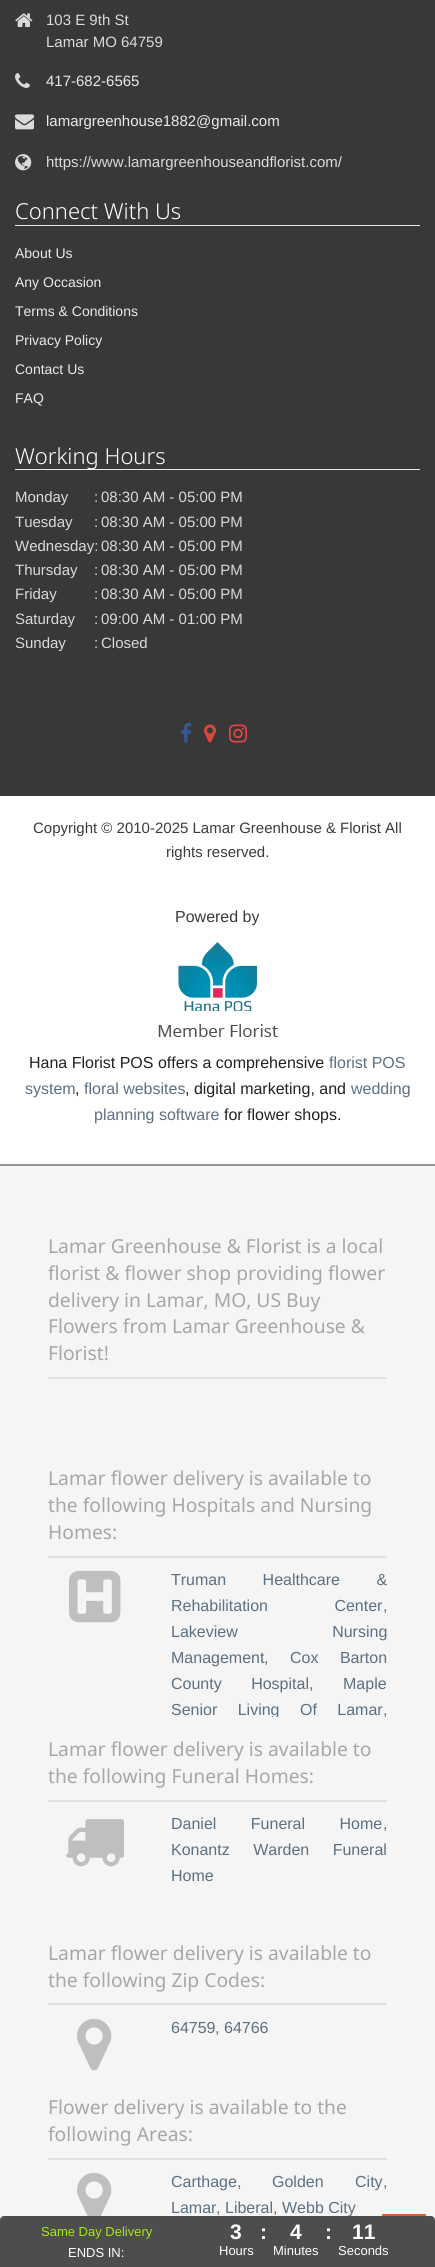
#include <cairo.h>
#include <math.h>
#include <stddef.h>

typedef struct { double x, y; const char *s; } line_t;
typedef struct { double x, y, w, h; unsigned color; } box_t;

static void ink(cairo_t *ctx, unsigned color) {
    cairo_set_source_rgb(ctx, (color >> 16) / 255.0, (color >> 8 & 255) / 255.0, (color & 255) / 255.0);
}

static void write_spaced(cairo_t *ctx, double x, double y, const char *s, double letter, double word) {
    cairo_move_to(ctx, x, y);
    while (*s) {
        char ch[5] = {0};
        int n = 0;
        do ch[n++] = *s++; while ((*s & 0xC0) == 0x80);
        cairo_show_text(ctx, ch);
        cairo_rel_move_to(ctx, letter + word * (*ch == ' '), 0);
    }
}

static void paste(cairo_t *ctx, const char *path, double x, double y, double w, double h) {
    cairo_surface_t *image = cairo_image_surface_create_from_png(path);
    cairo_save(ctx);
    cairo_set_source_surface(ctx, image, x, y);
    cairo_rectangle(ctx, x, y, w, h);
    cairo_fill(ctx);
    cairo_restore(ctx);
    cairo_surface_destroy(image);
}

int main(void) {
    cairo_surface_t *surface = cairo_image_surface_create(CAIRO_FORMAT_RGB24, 435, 2267);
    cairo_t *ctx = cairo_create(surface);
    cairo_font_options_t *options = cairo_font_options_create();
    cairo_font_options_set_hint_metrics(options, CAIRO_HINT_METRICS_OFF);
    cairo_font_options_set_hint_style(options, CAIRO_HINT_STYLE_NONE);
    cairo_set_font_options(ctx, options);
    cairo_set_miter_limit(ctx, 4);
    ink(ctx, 0xFFFFFF);
    cairo_paint(ctx);
    ink(ctx, 0x383838);
    cairo_rectangle(ctx, 0, 0, 435, 796);
    cairo_fill(ctx);
    paste(ctx, "media/1.png", 15, 13, 18, 14);
    cairo_select_font_face(ctx, "Liberation Sans", CAIRO_FONT_SLANT_NORMAL, CAIRO_FONT_WEIGHT_NORMAL);
    cairo_set_font_size(ctx, 15);
    ink(ctx, 0xDADADA);
    cairo_move_to(ctx, 46, 25);
    cairo_show_text(ctx, "103 E 9th St");
    cairo_move_to(ctx, 46, 47);
    cairo_show_text(ctx, "Lamar MO 64759");
    paste(ctx, "media/2.png", 15, 73, 15, 15);
    ink(ctx, 0xEAEAEA);
    cairo_move_to(ctx, 46, 86);
    cairo_show_text(ctx, "417-682-6565");
    paste(ctx, "media/3.png", 15, 114, 19, 16);
    cairo_move_to(ctx, 46, 126);
    cairo_show_text(ctx, "lamargreenhouse1882@gmail.com");
    paste(ctx, "media/4.png", 15, 154, 17, 17);
    ink(ctx, 0xDADADA);
    cairo_move_to(ctx, 46, 167);
    cairo_show_text(ctx, "https://www.lamargreenhouseandflorist.com/");
    ink(ctx, 0xE8E8E8);
    cairo_rectangle(ctx, 15, 225, 405, 1);
    cairo_fill(ctx);
    cairo_select_font_face(ctx, "Noto Sans Light", CAIRO_FONT_SLANT_NORMAL, CAIRO_FONT_WEIGHT_NORMAL);
    cairo_set_font_size(ctx, 22);
    ink(ctx, 0xFFFFFF);
    cairo_move_to(ctx, 15, 219);
    cairo_show_text(ctx, "Connect With Us");
    cairo_select_font_face(ctx, "Liberation Sans", CAIRO_FONT_SLANT_NORMAL, CAIRO_FONT_WEIGHT_NORMAL);
    cairo_set_font_size(ctx, 14);
    ink(ctx, 0xEAEAEA);
    {
        static const line_t items[] = {
            {15, 258, "About Us"},
            {15, 287, "Any Occasion"},
            {15, 316, "Terms & Conditions"},
            {15, 345, "Privacy Policy"},
            {15, 374, "Contact Us"},
            {15, 403, "FAQ"},
        };
        for (size_t i = 0; i < sizeof items / sizeof *items; i++) {
            cairo_move_to(ctx, items[i].x, items[i].y);
            cairo_show_text(ctx, items[i].s);
        }
    }
    ink(ctx, 0xE8E8E8);
    cairo_rectangle(ctx, 15, 469, 405, 1);
    cairo_fill(ctx);
    cairo_select_font_face(ctx, "Noto Sans Light", CAIRO_FONT_SLANT_NORMAL, CAIRO_FONT_WEIGHT_NORMAL);
    cairo_set_font_size(ctx, 22);
    ink(ctx, 0xFFFFFF);
    cairo_move_to(ctx, 15, 464);
    cairo_show_text(ctx, "Working Hours");
    cairo_select_font_face(ctx, "Liberation Sans", CAIRO_FONT_SLANT_NORMAL, CAIRO_FONT_WEIGHT_NORMAL);
    cairo_set_font_size(ctx, 15);
    ink(ctx, 0xDADADA);
    {
        static const line_t items[] = {
            {15, 502, "Monday"},
            {94, 502, ":"},
            {101, 502, "08:30 AM - 05:00 PM"},
            {15, 527, "Tuesday"},
            {94, 527, ":"},
            {101, 527, "08:30 AM - 05:00 PM"},
            {15, 551, "Wednesday:"},
            {101, 551, "08:30 AM - 05:00 PM"},
            {15, 575, "Thursday"},
            {94, 575, ":"},
            {101, 575, "08:30 AM - 05:00 PM"},
            {15, 599, "Friday"},
            {94, 599, ":"},
            {101, 599, "08:30 AM - 05:00 PM"},
            {15, 624, "Saturday"},
            {94, 624, ":"},
            {101, 624, "09:00 AM - 01:00 PM"},
            {15, 648, "Sunday"},
            {94, 648, ":"},
            {101, 648, "Closed"},
        };
        for (size_t i = 0; i < sizeof items / sizeof *items; i++) {
            cairo_move_to(ctx, items[i].x, items[i].y);
            cairo_show_text(ctx, items[i].s);
        }
    }
    paste(ctx, "media/5.png", 181, 723, 11, 20);
    paste(ctx, "media/6.png", 204, 724, 12, 19);
    paste(ctx, "media/7.png", 229, 724, 18, 19);
    ink(ctx, 0x3C3A3A);
    cairo_move_to(ctx, 33, 833);
    cairo_show_text(ctx, "Copyright © 2010-2025 Lamar Greenhouse & Florist All");
    cairo_move_to(ctx, 166, 857);
    cairo_show_text(ctx, "rights reserved.");
    cairo_set_font_size(ctx, 16);
    cairo_move_to(ctx, 175, 922);
    cairo_show_text(ctx, "Powered by");
    paste(ctx, "media/8.png", 158, 942, 120, 95);
    ink(ctx, 0x212121);
    cairo_move_to(ctx, 29, 1068);
    cairo_show_text(ctx, "Hana Florist POS offers a comprehensive");
    ink(ctx, 0x5B7083);
    cairo_move_to(ctx, 329, 1068);
    cairo_show_text(ctx, "florist POS");
    cairo_move_to(ctx, 25, 1094);
    cairo_show_text(ctx, "system");
    ink(ctx, 0x212121);
    cairo_move_to(ctx, 75, 1094);
    cairo_show_text(ctx, ",");
    ink(ctx, 0x5B7083);
    cairo_move_to(ctx, 84, 1094);
    cairo_show_text(ctx, "floral websites");
    ink(ctx, 0x212121);
    cairo_move_to(ctx, 185, 1094);
    cairo_show_text(ctx, ", digital marketing, and");
    ink(ctx, 0x5B7083);
    cairo_move_to(ctx, 351, 1094);
    cairo_show_text(ctx, "wedding");
    cairo_move_to(ctx, 94, 1120);
    cairo_show_text(ctx, "planning software");
    ink(ctx, 0x212121);
    cairo_move_to(ctx, 224, 1120);
    cairo_show_text(ctx, "for flower shops.");
    {
        static const box_t items[] = {
            {0, 1166, 435, 1054, 0xF5F5F5},
            {0, 1164, 435, 2, 0x969696},
            {48, 1377, 339, 2, 0xE0E0E0},
        };
        for (size_t i = 0; i < sizeof items / sizeof *items; i++) {
            ink(ctx, items[i].color);
            cairo_rectangle(ctx, items[i].x, items[i].y, items[i].w, items[i].h);
            cairo_fill(ctx);
        }
    }
    cairo_select_font_face(ctx, "Noto Sans", CAIRO_FONT_SLANT_NORMAL, CAIRO_FONT_WEIGHT_NORMAL);
    cairo_set_font_size(ctx, 19.25);
    ink(ctx, 0xA7A7A7);
    {
        static const line_t items[] = {
            {48, 1253, "Lamar Greenhouse & Florist is a local"},
            {48, 1280, "florist & flower shop providing flower"},
            {48, 1307, "delivery in Lamar, MO, US Buy"},
            {48, 1333, "Flowers from Lamar Greenhouse &"},
            {48, 1360, "Florist!"},
        };
        for (size_t i = 0; i < sizeof items / sizeof *items; i++) {
            cairo_move_to(ctx, items[i].x, items[i].y);
            cairo_show_text(ctx, items[i].s);
        }
    }
    ink(ctx, 0xE0E0E0);
    cairo_rectangle(ctx, 48, 1556, 339, 2);
    cairo_fill(ctx);
    ink(ctx, 0xA7A7A7);
    {
        static const line_t items[] = {
            {48, 1485, "Lamar flower delivery is available to"},
            {48, 1512, "the following Hospitals and Nursing"},
            {48, 1539, "Homes:"},
        };
        for (size_t i = 0; i < sizeof items / sizeof *items; i++) {
            cairo_move_to(ctx, items[i].x, items[i].y);
            cairo_show_text(ctx, items[i].s);
        }
    }
    paste(ctx, "media/9.png", 69, 1570, 52, 53);
    cairo_select_font_face(ctx, "Liberation Sans", CAIRO_FONT_SLANT_NORMAL, CAIRO_FONT_WEIGHT_NORMAL);
    cairo_set_font_size(ctx, 16);
    ink(ctx, 0x5B7083);
    write_spaced(ctx, 171, 1585, "Truman Healthcare &", 0, 32);
    write_spaced(ctx, 171, 1611, "Rehabilitation Center", 0, 62);
    ink(ctx, 0x6F6F6F);
    cairo_move_to(ctx, 383, 1611);
    cairo_show_text(ctx, ",");
    ink(ctx, 0x5B7083);
    write_spaced(ctx, 171, 1637, "Lakeview Nursing", 0, 90);
    cairo_move_to(ctx, 171, 1663);
    cairo_show_text(ctx, "Management");
    ink(ctx, 0x6F6F6F);
    cairo_move_to(ctx, 264, 1663);
    cairo_show_text(ctx, ",");
    ink(ctx, 0x5B7083);
    write_spaced(ctx, 290, 1663, "Cox Barton", 0, 17);
    write_spaced(ctx, 171, 1689, "County Hospital", 0, 25);
    ink(ctx, 0x6F6F6F);
    cairo_move_to(ctx, 309, 1689);
    cairo_show_text(ctx, ",");
    ink(ctx, 0x5B7083);
    cairo_move_to(ctx, 343, 1689);
    cairo_show_text(ctx, "Maple");
    cairo_save(ctx);
    cairo_rectangle(ctx, 156, 1567, 246, 150);
    cairo_clip(ctx);
    write_spaced(ctx, 171, 1715, "Senior Living Of Lamar", 0, 16);
    cairo_restore(ctx);
    ink(ctx, 0x6F6F6F);
    cairo_move_to(ctx, 383, 1715);
    cairo_show_text(ctx, ",");
    ink(ctx, 0xE0E0E0);
    cairo_rectangle(ctx, 48, 1800, 339, 2);
    cairo_fill(ctx);
    cairo_select_font_face(ctx, "Noto Sans", CAIRO_FONT_SLANT_NORMAL, CAIRO_FONT_WEIGHT_NORMAL);
    cairo_set_font_size(ctx, 19.25);
    ink(ctx, 0xA7A7A7);
    cairo_move_to(ctx, 48, 1756);
    cairo_show_text(ctx, "Lamar flower delivery is available to");
    cairo_move_to(ctx, 48, 1783);
    cairo_show_text(ctx, "the following Funeral Homes:");
    paste(ctx, "media/10.png", 66, 1819, 58, 48);
    cairo_select_font_face(ctx, "Liberation Sans", CAIRO_FONT_SLANT_NORMAL, CAIRO_FONT_WEIGHT_NORMAL);
    cairo_set_font_size(ctx, 16);
    ink(ctx, 0x5B7083);
    write_spaced(ctx, 171, 1829, "Daniel Funeral Home", 0, 30);
    ink(ctx, 0x6F6F6F);
    cairo_move_to(ctx, 383, 1829);
    cairo_show_text(ctx, ",");
    ink(ctx, 0x5B7083);
    write_spaced(ctx, 171, 1855, "Konantz Warden Funeral", 0, 19);
    cairo_move_to(ctx, 171, 1881);
    cairo_show_text(ctx, "Home");
    ink(ctx, 0xE0E0E0);
    cairo_rectangle(ctx, 48, 2003, 339, 2);
    cairo_fill(ctx);
    cairo_select_font_face(ctx, "Noto Sans", CAIRO_FONT_SLANT_NORMAL, CAIRO_FONT_WEIGHT_NORMAL);
    cairo_set_font_size(ctx, 19.25);
    ink(ctx, 0xA7A7A7);
    cairo_move_to(ctx, 48, 1960);
    cairo_show_text(ctx, "Lamar flower delivery is available to");
    cairo_move_to(ctx, 48, 1987);
    cairo_show_text(ctx, "the following Zip Codes:");
    paste(ctx, "media/11.png", 77, 2018, 35, 53);
    cairo_select_font_face(ctx, "Liberation Sans", CAIRO_FONT_SLANT_NORMAL, CAIRO_FONT_WEIGHT_NORMAL);
    cairo_set_font_size(ctx, 16);
    ink(ctx, 0x5B7083);
    cairo_move_to(ctx, 171, 2033);
    cairo_show_text(ctx, "64759");
    ink(ctx, 0x6F6F6F);
    cairo_move_to(ctx, 215, 2033);
    cairo_show_text(ctx, ",");
    ink(ctx, 0x5B7083);
    cairo_move_to(ctx, 224, 2033);
    cairo_show_text(ctx, "64766");
    ink(ctx, 0xE0E0E0);
    cairo_rectangle(ctx, 48, 2158, 339, 2);
    cairo_fill(ctx);
    cairo_select_font_face(ctx, "Noto Sans", CAIRO_FONT_SLANT_NORMAL, CAIRO_FONT_WEIGHT_NORMAL);
    cairo_set_font_size(ctx, 19.25);
    ink(ctx, 0xA7A7A7);
    cairo_move_to(ctx, 48, 2114);
    cairo_show_text(ctx, "Flower delivery is available to the");
    cairo_move_to(ctx, 48, 2141);
    cairo_show_text(ctx, "following Areas:");
    paste(ctx, "media/12.png", 77, 2172, 35, 44);
    cairo_select_font_face(ctx, "Liberation Sans", CAIRO_FONT_SLANT_NORMAL, CAIRO_FONT_WEIGHT_NORMAL);
    cairo_set_font_size(ctx, 16);
    ink(ctx, 0x5B7083);
    cairo_move_to(ctx, 171, 2187);
    cairo_show_text(ctx, "Carthage");
    ink(ctx, 0x6F6F6F);
    cairo_move_to(ctx, 237, 2187);
    cairo_show_text(ctx, ",");
    ink(ctx, 0x5B7083);
    write_spaced(ctx, 272, 2187, "Golden City", 0, 27);
    ink(ctx, 0x6F6F6F);
    cairo_move_to(ctx, 383, 2187);
    cairo_show_text(ctx, ",");
    ink(ctx, 0x5B7083);
    cairo_move_to(ctx, 171, 2213);
    cairo_show_text(ctx, "Lamar");
    ink(ctx, 0x6F6F6F);
    cairo_move_to(ctx, 216, 2213);
    cairo_show_text(ctx, ",");
    ink(ctx, 0x5B7083);
    cairo_move_to(ctx, 225, 2213);
    cairo_show_text(ctx, "Liberal");
    ink(ctx, 0x6F6F6F);
    cairo_move_to(ctx, 273, 2213);
    cairo_show_text(ctx, ",");
    ink(ctx, 0x5B7083);
    cairo_move_to(ctx, 282, 2213);
    cairo_show_text(ctx, "Webb City");
    ink(ctx, 0xE15E2A);
    cairo_rectangle(ctx, 382, 2214, 44, 2);
    cairo_fill(ctx);
    ink(ctx, 0x4D4D4D);
    cairo_new_path(ctx);
    cairo_move_to(ctx, 4, 2216);
    cairo_line_to(ctx, 431, 2216);
    cairo_curve_to(ctx, 433, 2216, 435, 2218, 435, 2220);
    cairo_line_to(ctx, 435, 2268);
    cairo_line_to(ctx, 0, 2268);
    cairo_line_to(ctx, 0, 2220);
    cairo_curve_to(ctx, 0, 2218, 2, 2216, 4, 2216);
    cairo_close_path(ctx);
    cairo_fill(ctx);
    cairo_set_font_size(ctx, 13);
    ink(ctx, 0xA4E818);
    cairo_move_to(ctx, 41, 2236);
    cairo_show_text(ctx, "Same Day Delivery");
    ink(ctx, 0xFFFFFF);
    cairo_move_to(ctx, 68, 2257);
    cairo_show_text(ctx, "ENDS IN:");
    cairo_select_font_face(ctx, "Liberation Sans", CAIRO_FONT_SLANT_NORMAL, CAIRO_FONT_WEIGHT_BOLD);
    cairo_set_font_size(ctx, 21);
    cairo_move_to(ctx, 230, 2239);
    cairo_show_text(ctx, "3");
    cairo_select_font_face(ctx, "Liberation Sans", CAIRO_FONT_SLANT_NORMAL, CAIRO_FONT_WEIGHT_NORMAL);
    cairo_set_font_size(ctx, 13);
    cairo_move_to(ctx, 219, 2255);
    cairo_show_text(ctx, "Hours");
    cairo_select_font_face(ctx, "Liberation Sans", CAIRO_FONT_SLANT_NORMAL, CAIRO_FONT_WEIGHT_BOLD);
    cairo_set_font_size(ctx, 21);
    cairo_move_to(ctx, 260, 2239);
    cairo_show_text(ctx, ":");
    cairo_move_to(ctx, 290, 2239);
    cairo_show_text(ctx, "4");
    cairo_select_font_face(ctx, "Liberation Sans", CAIRO_FONT_SLANT_NORMAL, CAIRO_FONT_WEIGHT_NORMAL);
    cairo_set_font_size(ctx, 13);
    cairo_move_to(ctx, 273, 2255);
    cairo_show_text(ctx, "Minutes");
    cairo_select_font_face(ctx, "Liberation Sans", CAIRO_FONT_SLANT_NORMAL, CAIRO_FONT_WEIGHT_BOLD);
    cairo_set_font_size(ctx, 21);
    cairo_move_to(ctx, 325, 2239);
    cairo_show_text(ctx, ":");
    cairo_move_to(ctx, 352, 2239);
    cairo_show_text(ctx, "11");
    cairo_select_font_face(ctx, "Liberation Sans", CAIRO_FONT_SLANT_NORMAL, CAIRO_FONT_WEIGHT_NORMAL);
    cairo_set_font_size(ctx, 13);
    cairo_move_to(ctx, 338, 2255);
    cairo_show_text(ctx, "Seconds");
    cairo_surface_write_to_png(surface, "image.png");
    cairo_font_options_destroy(options);
    cairo_destroy(ctx);
    cairo_surface_destroy(surface);
    return 0;
}
